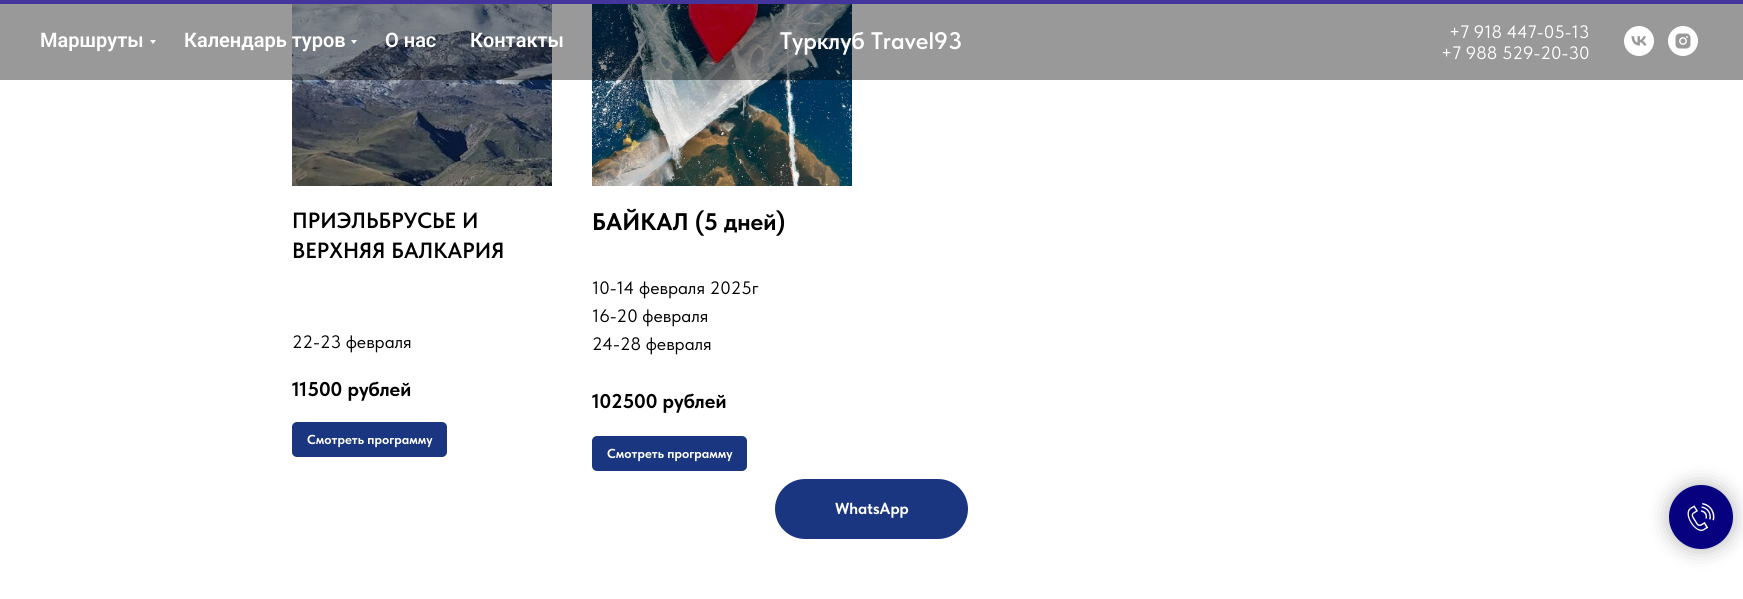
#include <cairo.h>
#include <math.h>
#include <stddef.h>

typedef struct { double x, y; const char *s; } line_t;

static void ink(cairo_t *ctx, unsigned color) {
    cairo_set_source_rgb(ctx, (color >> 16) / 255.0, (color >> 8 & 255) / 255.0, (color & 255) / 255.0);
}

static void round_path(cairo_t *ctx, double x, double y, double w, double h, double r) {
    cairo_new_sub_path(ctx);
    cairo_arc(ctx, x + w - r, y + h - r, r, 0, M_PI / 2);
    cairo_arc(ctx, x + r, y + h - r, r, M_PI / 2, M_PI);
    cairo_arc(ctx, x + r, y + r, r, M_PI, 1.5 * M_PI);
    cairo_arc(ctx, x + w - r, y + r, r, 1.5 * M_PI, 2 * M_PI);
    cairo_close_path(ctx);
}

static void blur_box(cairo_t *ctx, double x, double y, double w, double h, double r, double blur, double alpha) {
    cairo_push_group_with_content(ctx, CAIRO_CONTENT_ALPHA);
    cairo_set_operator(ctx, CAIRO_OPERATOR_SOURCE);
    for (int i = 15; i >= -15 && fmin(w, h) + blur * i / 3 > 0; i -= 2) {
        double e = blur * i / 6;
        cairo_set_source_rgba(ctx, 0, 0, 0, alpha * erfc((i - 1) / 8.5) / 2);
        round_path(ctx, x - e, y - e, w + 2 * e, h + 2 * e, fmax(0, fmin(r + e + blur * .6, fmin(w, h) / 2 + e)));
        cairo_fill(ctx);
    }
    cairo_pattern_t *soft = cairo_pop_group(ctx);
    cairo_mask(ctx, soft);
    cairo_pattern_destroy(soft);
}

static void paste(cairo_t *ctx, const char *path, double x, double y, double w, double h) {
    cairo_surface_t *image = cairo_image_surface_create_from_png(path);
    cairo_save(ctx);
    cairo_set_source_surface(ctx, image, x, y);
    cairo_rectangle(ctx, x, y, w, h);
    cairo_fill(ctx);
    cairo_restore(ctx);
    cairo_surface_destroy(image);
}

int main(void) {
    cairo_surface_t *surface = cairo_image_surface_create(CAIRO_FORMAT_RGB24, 1743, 599);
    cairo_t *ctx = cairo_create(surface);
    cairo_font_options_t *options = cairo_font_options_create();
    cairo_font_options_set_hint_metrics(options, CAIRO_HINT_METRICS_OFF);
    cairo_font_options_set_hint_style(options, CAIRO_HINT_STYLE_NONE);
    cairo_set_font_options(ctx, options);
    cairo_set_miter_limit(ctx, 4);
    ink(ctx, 0xFFFFFF);
    cairo_paint(ctx);
    ink(ctx, 0x43359C);
    cairo_rectangle(ctx, 0, 0, 1743, 4);
    cairo_fill(ctx);
    paste(ctx, "media/3.png", 292, 4, 260, 182);
    paste(ctx, "media/4.png", 592, 4, 260, 182);
    cairo_set_source_rgba(ctx, 0, 0, 0, 0.4);
    cairo_rectangle(ctx, 0, 4, 1743, 76);
    cairo_fill(ctx);
    cairo_select_font_face(ctx, "Roboto SemiBold", CAIRO_FONT_SLANT_NORMAL, CAIRO_FONT_WEIGHT_NORMAL);
    cairo_set_font_size(ctx, 20);
    ink(ctx, 0xFFFFFF);
    cairo_move_to(ctx, 40, 47);
    cairo_show_text(ctx, "Маршруты");
    cairo_new_path(ctx);
    cairo_move_to(ctx, 150, 40);
    cairo_line_to(ctx, 156, 40);
    cairo_line_to(ctx, 153, 44);
    cairo_close_path(ctx);
    cairo_fill(ctx);
    cairo_move_to(ctx, 184, 47);
    cairo_show_text(ctx, "Календарь туров");
    cairo_new_path(ctx);
    cairo_move_to(ctx, 351, 40);
    cairo_line_to(ctx, 357, 40);
    cairo_line_to(ctx, 354, 44);
    cairo_close_path(ctx);
    cairo_fill(ctx);
    cairo_move_to(ctx, 385, 47);
    cairo_show_text(ctx, "О нас");
    cairo_move_to(ctx, 470, 47);
    cairo_show_text(ctx, "Контакты");
    cairo_select_font_face(ctx, "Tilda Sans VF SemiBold", CAIRO_FONT_SLANT_NORMAL, CAIRO_FONT_WEIGHT_NORMAL);
    cairo_set_font_size(ctx, 24);
    cairo_move_to(ctx, 780, 49);
    cairo_show_text(ctx, "Турклуб Travel93");
    cairo_select_font_face(ctx, "Tilda Sans VF", CAIRO_FONT_SLANT_NORMAL, CAIRO_FONT_WEIGHT_NORMAL);
    cairo_set_font_size(ctx, 18);
    cairo_move_to(ctx, 1449, 38);
    cairo_show_text(ctx, "+7 918 447-05-13");
    cairo_move_to(ctx, 1441, 59);
    cairo_show_text(ctx, "+7 988 529-20-30");
    paste(ctx, "media/1.png", 1624, 26, 30, 30);
    paste(ctx, "media/2.png", 1668, 26, 30, 30);
    cairo_select_font_face(ctx, "Tilda Sans VF SemiBold", CAIRO_FONT_SLANT_NORMAL, CAIRO_FONT_WEIGHT_NORMAL);
    cairo_set_font_size(ctx, 22);
    ink(ctx, 0x000000);
    cairo_move_to(ctx, 292, 228);
    cairo_show_text(ctx, "ПРИЭЛЬБРУСЬЕ И");
    cairo_move_to(ctx, 292, 258);
    cairo_show_text(ctx, "ВЕРХНЯЯ БАЛКАРИЯ");
    cairo_select_font_face(ctx, "Tilda Sans VF", CAIRO_FONT_SLANT_NORMAL, CAIRO_FONT_WEIGHT_NORMAL);
    cairo_set_font_size(ctx, 18);
    cairo_move_to(ctx, 292, 348);
    cairo_show_text(ctx, "22-23 февраля");
    cairo_select_font_face(ctx, "Tilda Sans VF", CAIRO_FONT_SLANT_NORMAL, CAIRO_FONT_WEIGHT_BOLD);
    cairo_set_font_size(ctx, 20);
    cairo_move_to(ctx, 292, 396);
    cairo_show_text(ctx, "11500 рублей");
    ink(ctx, 0x1B3680);
    round_path(ctx, 292, 422, 155, 35, 5);
    cairo_fill(ctx);
    cairo_set_font_size(ctx, 13);
    ink(ctx, 0xFFFFFF);
    cairo_move_to(ctx, 307, 444);
    cairo_show_text(ctx, "Смотреть программу");
    cairo_set_font_size(ctx, 24);
    ink(ctx, 0x000000);
    cairo_move_to(ctx, 592, 230);
    cairo_show_text(ctx, "БАЙКАЛ (5 дней)");
    cairo_select_font_face(ctx, "Tilda Sans VF", CAIRO_FONT_SLANT_NORMAL, CAIRO_FONT_WEIGHT_NORMAL);
    cairo_set_font_size(ctx, 18);
    {
        static const line_t items[] = {
            {592, 294, "10-14 февраля 2025г"},
            {592, 322, "16-20 февраля"},
            {592, 350, "24-28 февраля"},
        };
        for (size_t i = 0; i < sizeof items / sizeof *items; i++) {
            cairo_move_to(ctx, items[i].x, items[i].y);
            cairo_show_text(ctx, items[i].s);
        }
    }
    cairo_select_font_face(ctx, "Tilda Sans VF", CAIRO_FONT_SLANT_NORMAL, CAIRO_FONT_WEIGHT_BOLD);
    cairo_set_font_size(ctx, 20);
    cairo_move_to(ctx, 592, 408);
    cairo_show_text(ctx, "102500 рублей");
    ink(ctx, 0x1B3680);
    round_path(ctx, 592, 436, 155, 35, 5);
    cairo_fill(ctx);
    cairo_set_font_size(ctx, 13);
    ink(ctx, 0xFFFFFF);
    cairo_move_to(ctx, 607, 458);
    cairo_show_text(ctx, "Смотреть программу");
    ink(ctx, 0x1B3680);
    round_path(ctx, 775, 479, 193, 60, 30);
    cairo_fill(ctx);
    cairo_set_font_size(ctx, 16);
    ink(ctx, 0xFFFFFF);
    cairo_move_to(ctx, 835, 514);
    cairo_show_text(ctx, "WhatsApp");
    ink(ctx, 0x000000);
    blur_box(ctx, 1669, 485, 64, 64, 32, 10, 0.3);
    ink(ctx, 0x070180);
    cairo_arc(ctx, 1701, 517, 31, 0, 2 * M_PI);
    cairo_fill_preserve(ctx);
    cairo_stroke(ctx);
    paste(ctx, "media/5.png", 1687, 503, 28, 28);
    cairo_surface_write_to_png(surface, "image.png");
    cairo_font_options_destroy(options);
    cairo_destroy(ctx);
    cairo_surface_destroy(surface);
    return 0;
}
